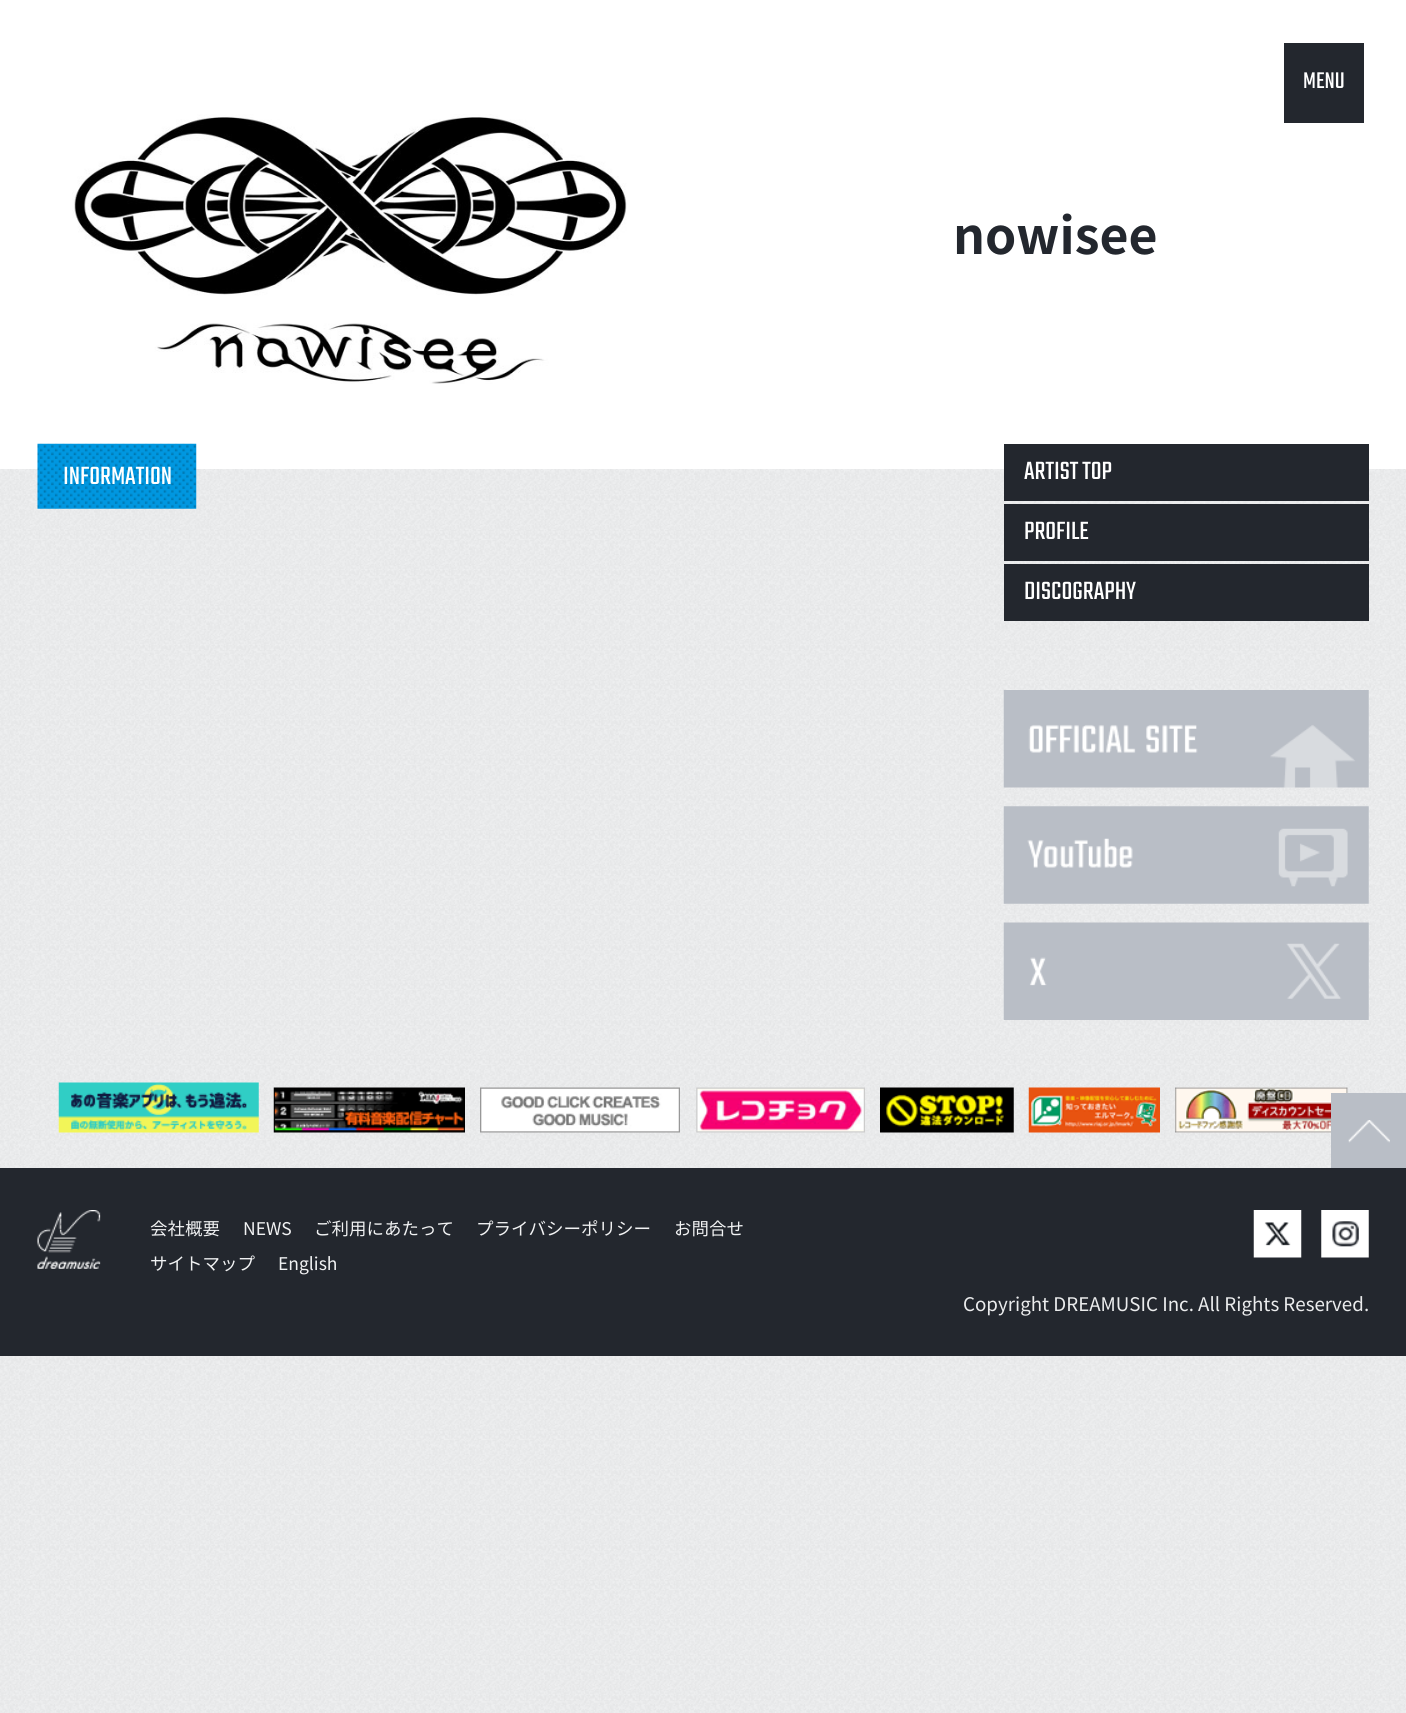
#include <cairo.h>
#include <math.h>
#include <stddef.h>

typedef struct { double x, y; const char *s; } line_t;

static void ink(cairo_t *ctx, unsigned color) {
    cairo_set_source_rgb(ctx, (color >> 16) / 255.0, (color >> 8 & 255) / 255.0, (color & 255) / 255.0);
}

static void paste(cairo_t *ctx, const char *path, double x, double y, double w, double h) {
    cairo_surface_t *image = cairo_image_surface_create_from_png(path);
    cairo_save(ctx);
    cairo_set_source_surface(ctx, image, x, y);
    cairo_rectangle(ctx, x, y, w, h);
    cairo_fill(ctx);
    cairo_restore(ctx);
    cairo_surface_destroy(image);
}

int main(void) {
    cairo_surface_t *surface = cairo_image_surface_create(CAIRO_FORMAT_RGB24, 1406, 1713);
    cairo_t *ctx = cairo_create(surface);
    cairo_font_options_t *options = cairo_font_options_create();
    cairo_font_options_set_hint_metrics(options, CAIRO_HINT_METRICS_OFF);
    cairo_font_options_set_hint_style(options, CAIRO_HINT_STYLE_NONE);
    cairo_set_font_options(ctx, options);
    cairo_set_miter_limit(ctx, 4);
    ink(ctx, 0xFFFFFF);
    cairo_paint(ctx);
    paste(ctx, "media/1.png", 0, 469, 1406, 1244);
    ink(ctx, 0x23272E);
    cairo_rectangle(ctx, 1284, 43, 80, 80);
    cairo_fill(ctx);
    cairo_select_font_face(ctx, "Teko Light", CAIRO_FONT_SLANT_NORMAL, CAIRO_FONT_WEIGHT_NORMAL);
    cairo_set_font_size(ctx, 25);
    ink(ctx, 0xFFFFFF);
    cairo_move_to(ctx, 1303, 88);
    cairo_show_text(ctx, "MENU");
    paste(ctx, "media/2.png", 72, 114, 555, 270);
    cairo_select_font_face(ctx, "Noto Sans JP", CAIRO_FONT_SLANT_NORMAL, CAIRO_FONT_WEIGHT_BOLD);
    cairo_set_font_size(ctx, 50);
    ink(ctx, 0x23272E);
    cairo_move_to(ctx, 953, 254);
    cairo_show_text(ctx, "nowisee");
    paste(ctx, "media/3.png", 37, 443, 160, 66);
    cairo_select_font_face(ctx, "Teko Light", CAIRO_FONT_SLANT_NORMAL, CAIRO_FONT_WEIGHT_NORMAL);
    cairo_set_font_size(ctx, 27.5);
    ink(ctx, 0xFFFFFF);
    cairo_move_to(ctx, 63, 484);
    cairo_show_text(ctx, "INFORMATION");
    ink(ctx, 0x23272E);
    cairo_rectangle(ctx, 1004, 444, 365, 57);
    cairo_fill(ctx);
    ink(ctx, 0xFFFFFF);
    cairo_move_to(ctx, 1024, 479);
    cairo_show_text(ctx, "ARTIST TOP");
    ink(ctx, 0x23272E);
    cairo_rectangle(ctx, 1004, 504, 365, 57);
    cairo_fill(ctx);
    ink(ctx, 0xFFFFFF);
    cairo_move_to(ctx, 1024, 539);
    cairo_show_text(ctx, "PROFILE");
    ink(ctx, 0x23272E);
    cairo_rectangle(ctx, 1004, 564, 365, 57);
    cairo_fill(ctx);
    ink(ctx, 0xFFFFFF);
    cairo_move_to(ctx, 1024, 599);
    cairo_show_text(ctx, "DISCOGRAPHY");
    paste(ctx, "media/4.png", 1003, 690, 366, 98);
    paste(ctx, "media/5.png", 1003, 806, 366, 98);
    paste(ctx, "media/6.png", 1003, 922, 366, 98);
    paste(ctx, "media/7.png", 58, 1082, 201, 51);
    paste(ctx, "media/8.png", 273, 1087, 192, 46);
    paste(ctx, "media/9.png", 480, 1087, 200, 46);
    paste(ctx, "media/10.png", 696, 1087, 169, 46);
    paste(ctx, "media/11.png", 880, 1087, 134, 46);
    paste(ctx, "media/12.png", 1028, 1087, 132, 46);
    paste(ctx, "media/13.png", 1175, 1087, 173, 46);
    ink(ctx, 0x23272E);
    cairo_rectangle(ctx, 0, 1168, 1406, 188);
    cairo_fill(ctx);
    ink(ctx, 0xB9BEC6);
    cairo_rectangle(ctx, 1331, 1093, 75, 75);
    cairo_fill(ctx);
    paste(ctx, "media/14.png", 1348, 1120, 42, 23);
    paste(ctx, "media/15.png", 37, 1210, 64, 59);
    cairo_select_font_face(ctx, "Noto Sans JP", CAIRO_FONT_SLANT_NORMAL, CAIRO_FONT_WEIGHT_NORMAL);
    cairo_set_font_size(ctx, 17.5);
    ink(ctx, 0xF1F2F3);
    {
        static const line_t items[] = {
            {150, 1235, "会社概要"},
            {243, 1235, "NEWS"},
            {314, 1235, "ご利用にあたって"},
            {476, 1235, "プライバシーポリシー"},
            {674, 1235, "お問合せ"},
            {150, 1270, "サイトマップ"},
            {278, 1270, "English"},
        };
        for (size_t i = 0; i < sizeof items / sizeof *items; i++) {
            cairo_move_to(ctx, items[i].x, items[i].y);
            cairo_show_text(ctx, items[i].s);
        }
    }
    paste(ctx, "media/16.png", 1253, 1210, 49, 48);
    paste(ctx, "media/17.png", 1321, 1210, 48, 48);
    cairo_set_font_size(ctx, 18.75);
    ink(ctx, 0xEBECED);
    cairo_move_to(ctx, 963, 1311);
    cairo_show_text(ctx, "Copyright DREAMUSIC Inc. All Rights Reserved.");
    cairo_surface_write_to_png(surface, "image.png");
    cairo_font_options_destroy(options);
    cairo_destroy(ctx);
    cairo_surface_destroy(surface);
    return 0;
}
